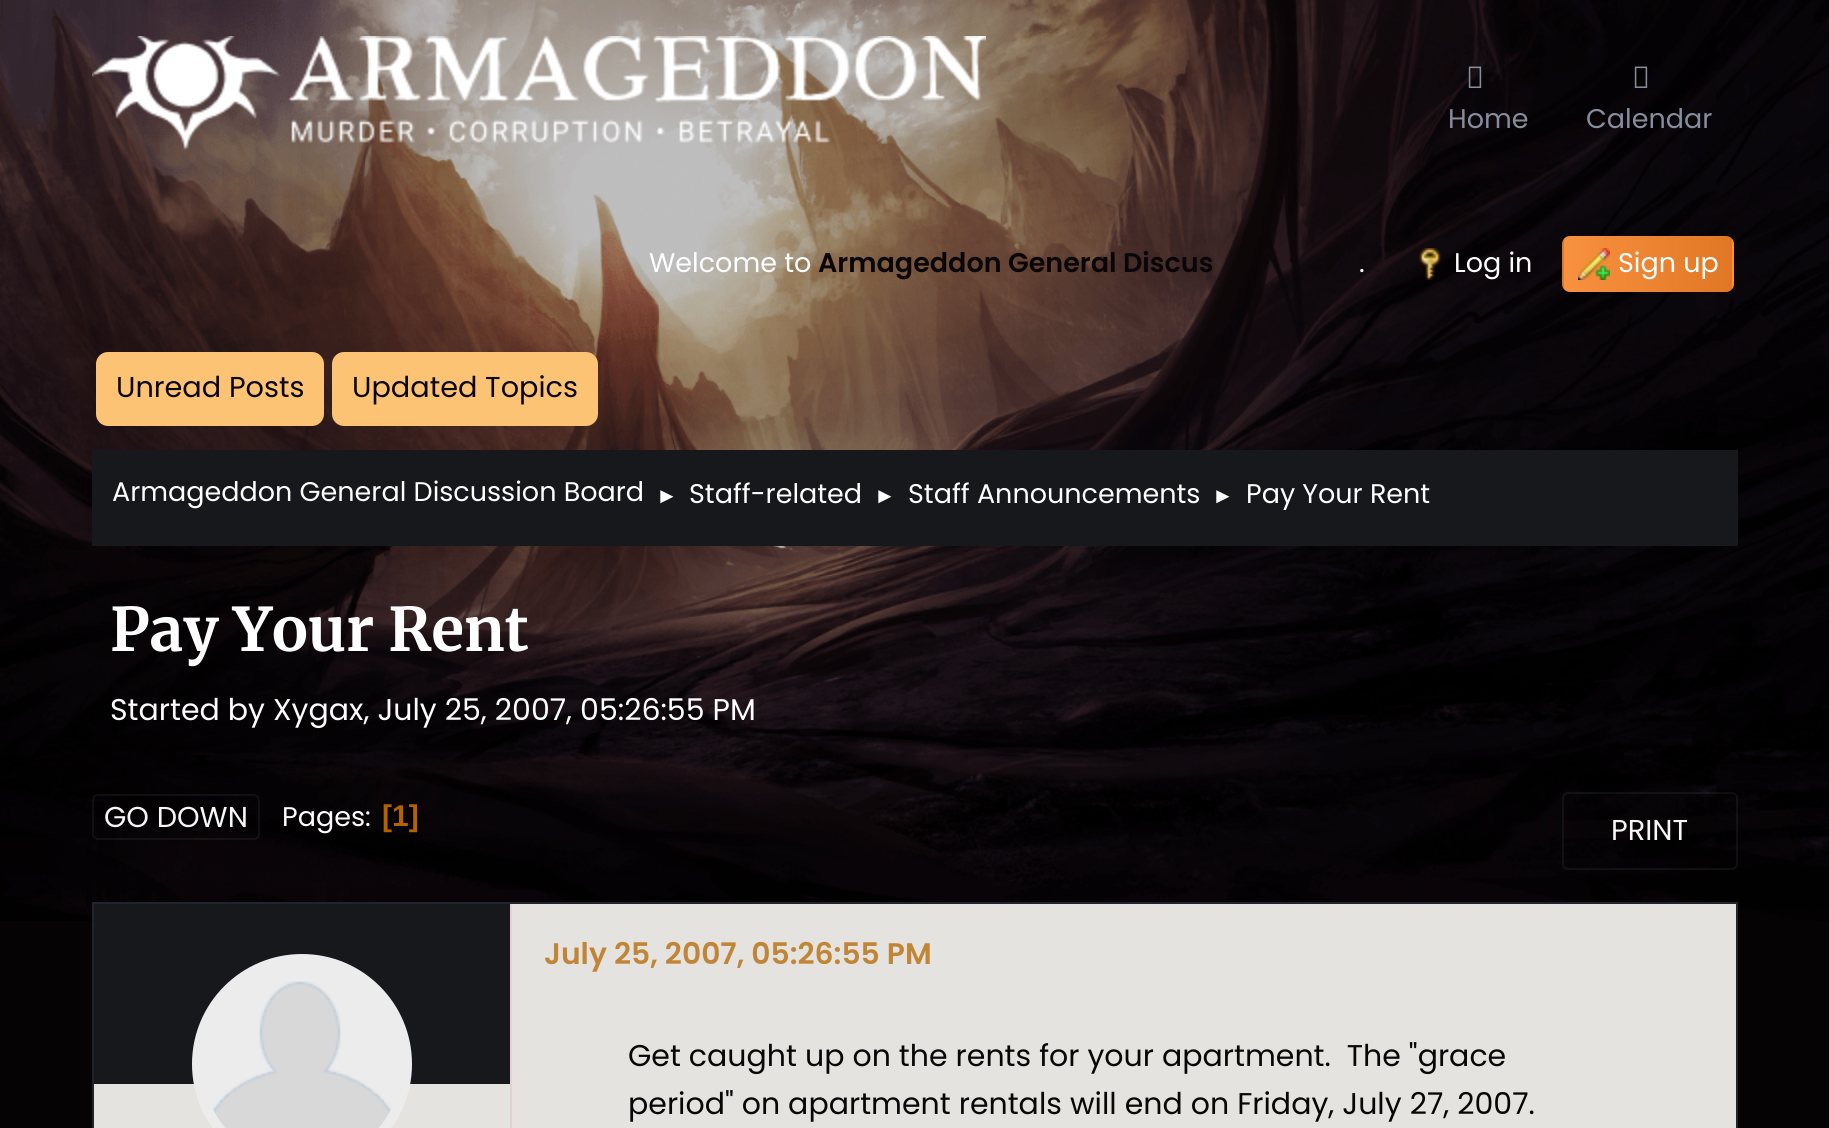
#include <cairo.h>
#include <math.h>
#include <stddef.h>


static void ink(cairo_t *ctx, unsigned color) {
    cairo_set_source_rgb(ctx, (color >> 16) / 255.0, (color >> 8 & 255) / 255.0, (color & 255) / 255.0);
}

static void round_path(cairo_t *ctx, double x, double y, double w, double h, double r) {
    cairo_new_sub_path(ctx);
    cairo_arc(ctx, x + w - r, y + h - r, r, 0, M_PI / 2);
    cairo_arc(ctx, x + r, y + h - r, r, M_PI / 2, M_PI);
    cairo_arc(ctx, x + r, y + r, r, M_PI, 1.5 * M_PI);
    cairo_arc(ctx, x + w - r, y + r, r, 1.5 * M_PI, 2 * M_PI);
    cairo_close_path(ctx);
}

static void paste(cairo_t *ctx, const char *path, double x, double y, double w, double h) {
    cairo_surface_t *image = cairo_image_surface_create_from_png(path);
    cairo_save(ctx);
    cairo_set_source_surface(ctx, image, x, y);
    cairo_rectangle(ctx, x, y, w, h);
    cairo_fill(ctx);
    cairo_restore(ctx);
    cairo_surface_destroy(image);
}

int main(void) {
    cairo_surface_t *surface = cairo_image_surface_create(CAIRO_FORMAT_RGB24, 1829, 1128);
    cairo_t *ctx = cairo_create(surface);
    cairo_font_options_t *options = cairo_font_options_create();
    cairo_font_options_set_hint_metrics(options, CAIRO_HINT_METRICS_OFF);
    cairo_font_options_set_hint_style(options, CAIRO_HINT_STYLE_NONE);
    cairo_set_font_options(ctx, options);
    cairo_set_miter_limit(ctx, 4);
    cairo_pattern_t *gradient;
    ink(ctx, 0x050304);
    cairo_paint(ctx);
    paste(ctx, "media/1.png", 0, 0, 1829, 921);
    paste(ctx, "media/2.png", 92, 36, 894, 114);
    paste(ctx, "media/3.png", 1468, 66, 14, 22);
    cairo_select_font_face(ctx, "Poppins", CAIRO_FONT_SLANT_NORMAL, CAIRO_FONT_WEIGHT_NORMAL);
    cairo_set_font_size(ctx, 27);
    ink(ctx, 0x888D9D);
    cairo_move_to(ctx, 1448, 128);
    cairo_show_text(ctx, "Home");
    paste(ctx, "media/4.png", 1634, 66, 14, 22);
    cairo_move_to(ctx, 1586, 128);
    cairo_show_text(ctx, "Calendar");
    ink(ctx, 0xFFFFFF);
    cairo_move_to(ctx, 649, 272);
    cairo_show_text(ctx, "Welcome to");
    cairo_select_font_face(ctx, "Poppins SemiBold", CAIRO_FONT_SLANT_NORMAL, CAIRO_FONT_WEIGHT_NORMAL);
    ink(ctx, 0x0A0607);
    cairo_move_to(ctx, 818, 272);
    cairo_show_text(ctx, "Armageddon General Discus");
    cairo_select_font_face(ctx, "Poppins", CAIRO_FONT_SLANT_NORMAL, CAIRO_FONT_WEIGHT_NORMAL);
    ink(ctx, 0xFFFFFF);
    cairo_move_to(ctx, 1359, 272);
    cairo_show_text(ctx, ".");
    paste(ctx, "media/5.png", 1419, 248, 22, 32);
    cairo_move_to(ctx, 1454, 272);
    cairo_show_text(ctx, "Log in");
    cairo_save(ctx);
    round_path(ctx, 1562, 236, 172, 56, 8);
    cairo_clip(ctx);
    gradient = cairo_pattern_create_linear(1396, 264, 1564, 264);
    cairo_pattern_add_color_stop_rgba(gradient, 0, 0.973, 0.569, 0.251, 1);
    cairo_pattern_add_color_stop_rgba(gradient, 1, 0.882, 0.467, 0.141, 1);
    cairo_set_source(ctx, gradient);
    cairo_pattern_destroy(gradient);
    cairo_rectangle(ctx, 1562, 236, 2, 56);
    cairo_fill(ctx);
    gradient = cairo_pattern_create_linear(1564, 264, 1732, 264);
    cairo_pattern_add_color_stop_rgba(gradient, 0, 0.973, 0.569, 0.251, 1);
    cairo_pattern_add_color_stop_rgba(gradient, 1, 0.882, 0.467, 0.141, 1);
    cairo_set_source(ctx, gradient);
    cairo_pattern_destroy(gradient);
    cairo_rectangle(ctx, 1564, 236, 168, 56);
    cairo_fill(ctx);
    gradient = cairo_pattern_create_linear(1732, 264, 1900, 264);
    cairo_pattern_add_color_stop_rgba(gradient, 0, 0.973, 0.569, 0.251, 1);
    cairo_pattern_add_color_stop_rgba(gradient, 1, 0.882, 0.467, 0.141, 1);
    cairo_set_source(ctx, gradient);
    cairo_pattern_destroy(gradient);
    cairo_rectangle(ctx, 1732, 236, 2, 56);
    cairo_fill(ctx);
    cairo_restore(ctx);
    paste(ctx, "media/6.png", 1578, 248, 32, 32);
    cairo_move_to(ctx, 1618, 272);
    cairo_show_text(ctx, "Sign up");
    ink(ctx, 0xFCC374);
    round_path(ctx, 96, 352, 228, 74, 12);
    cairo_fill(ctx);
    cairo_set_font_size(ctx, 28.75);
    ink(ctx, 0x0A0607);
    cairo_move_to(ctx, 116, 397);
    cairo_show_text(ctx, "Unread Posts");
    ink(ctx, 0xFCC374);
    round_path(ctx, 332, 352, 266, 74, 12);
    cairo_fill(ctx);
    ink(ctx, 0x0A0607);
    cairo_move_to(ctx, 352, 397);
    cairo_show_text(ctx, "Updated Topics");
    ink(ctx, 0x17181B);
    cairo_rectangle(ctx, 92, 450, 1646, 96);
    cairo_fill(ctx);
    cairo_set_font_size(ctx, 27);
    ink(ctx, 0xFFFFFF);
    cairo_move_to(ctx, 112, 501);
    cairo_show_text(ctx, "Armageddon General Discussion Board");
    cairo_select_font_face(ctx, "Liberation Sans", CAIRO_FONT_SLANT_NORMAL, CAIRO_FONT_WEIGHT_NORMAL);
    cairo_set_font_size(ctx, 22);
    cairo_move_to(ctx, 656, 503);
    cairo_show_text(ctx, "►");
    cairo_select_font_face(ctx, "Poppins", CAIRO_FONT_SLANT_NORMAL, CAIRO_FONT_WEIGHT_NORMAL);
    cairo_set_font_size(ctx, 27);
    cairo_move_to(ctx, 689, 503);
    cairo_show_text(ctx, "Staff-related");
    cairo_select_font_face(ctx, "Liberation Sans", CAIRO_FONT_SLANT_NORMAL, CAIRO_FONT_WEIGHT_NORMAL);
    cairo_set_font_size(ctx, 22);
    cairo_move_to(ctx, 874, 503);
    cairo_show_text(ctx, "►");
    cairo_select_font_face(ctx, "Poppins", CAIRO_FONT_SLANT_NORMAL, CAIRO_FONT_WEIGHT_NORMAL);
    cairo_set_font_size(ctx, 27);
    cairo_move_to(ctx, 908, 503);
    cairo_show_text(ctx, "Staff Announcements");
    cairo_select_font_face(ctx, "Liberation Sans", CAIRO_FONT_SLANT_NORMAL, CAIRO_FONT_WEIGHT_NORMAL);
    cairo_set_font_size(ctx, 22);
    cairo_move_to(ctx, 1212, 503);
    cairo_show_text(ctx, "►");
    cairo_select_font_face(ctx, "Poppins", CAIRO_FONT_SLANT_NORMAL, CAIRO_FONT_WEIGHT_NORMAL);
    cairo_set_font_size(ctx, 27);
    cairo_move_to(ctx, 1246, 503);
    cairo_show_text(ctx, "Pay Your Rent");
    cairo_select_font_face(ctx, "Merriweather Light", CAIRO_FONT_SLANT_NORMAL, CAIRO_FONT_WEIGHT_NORMAL);
    cairo_set_font_size(ctx, 60);
    cairo_move_to(ctx, 110, 651);
    cairo_show_text(ctx, "Pay Your Rent");
    cairo_select_font_face(ctx, "Poppins", CAIRO_FONT_SLANT_NORMAL, CAIRO_FONT_WEIGHT_NORMAL);
    cairo_set_font_size(ctx, 30);
    cairo_move_to(ctx, 110, 720);
    cairo_show_text(ctx, "Started by Xygax, July 25, 2007, 05:26:55 PM");
    round_path(ctx, 93, 795, 166, 44, 5);
    cairo_set_source_rgba(ctx, 0.533, 0.553, 0.616, 0.1);
    cairo_stroke(ctx);
    cairo_set_font_size(ctx, 28.75);
    ink(ctx, 0xF7F7F7);
    cairo_move_to(ctx, 104, 827);
    cairo_show_text(ctx, "GO DOWN");
    cairo_set_font_size(ctx, 27);
    ink(ctx, 0xFFFFFF);
    cairo_move_to(ctx, 282, 826);
    cairo_show_text(ctx, "Pages:");
    cairo_select_font_face(ctx, "Liberation Sans", CAIRO_FONT_SLANT_NORMAL, CAIRO_FONT_WEIGHT_BOLD);
    cairo_set_font_size(ctx, 30);
    ink(ctx, 0xB46100);
    cairo_move_to(ctx, 382, 826);
    cairo_show_text(ctx, "[1]");
    round_path(ctx, 1563, 793, 174, 76, 5);
    cairo_set_source_rgba(ctx, 0.533, 0.553, 0.616, 0.1);
    cairo_stroke(ctx);
    cairo_select_font_face(ctx, "Poppins", CAIRO_FONT_SLANT_NORMAL, CAIRO_FONT_WEIGHT_NORMAL);
    cairo_set_font_size(ctx, 28.75);
    ink(ctx, 0xF7F7F7);
    cairo_move_to(ctx, 1611, 840);
    cairo_show_text(ctx, "PRINT");
    cairo_rectangle(ctx, 93, 903, 1644, 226);
    ink(ctx, 0x22242B);
    cairo_stroke(ctx);
    ink(ctx, 0xE5E3DF);
    cairo_rectangle(ctx, 94, 1084, 416, 44);
    cairo_fill(ctx);
    ink(ctx, 0x16181C);
    cairo_rectangle(ctx, 94, 904, 416, 180);
    cairo_fill(ctx);
    ink(ctx, 0xECECED);
    cairo_arc(ctx, 302, 1064, 110, 0, 2 * M_PI);
    cairo_fill(ctx);
    paste(ctx, "media/7.png", 213, 981, 178, 147);
    ink(ctx, 0xE5E3DF);
    cairo_rectangle(ctx, 512, 904, 1224, 224);
    cairo_fill(ctx);
    ink(ctx, 0xE6D0D7);
    cairo_rectangle(ctx, 510, 904, 2, 224);
    cairo_fill(ctx);
    cairo_select_font_face(ctx, "Poppins SemiBold", CAIRO_FONT_SLANT_NORMAL, CAIRO_FONT_WEIGHT_NORMAL);
    cairo_set_font_size(ctx, 29.75);
    ink(ctx, 0xC08537);
    cairo_move_to(ctx, 544, 964);
    cairo_show_text(ctx, "July 25, 2007, 05:26:55 PM");
    cairo_select_font_face(ctx, "Poppins", CAIRO_FONT_SLANT_NORMAL, CAIRO_FONT_WEIGHT_NORMAL);
    cairo_set_font_size(ctx, 30);
    ink(ctx, 0x0A0607);
    cairo_move_to(ctx, 628, 1066);
    cairo_show_text(ctx, "Get caught up on the rents for your apartment.  The \"grace");
    cairo_move_to(ctx, 628, 1114);
    cairo_show_text(ctx, "period\" on apartment rentals will end on Friday, July 27, 2007.");
    cairo_surface_write_to_png(surface, "image.png");
    cairo_font_options_destroy(options);
    cairo_destroy(ctx);
    cairo_surface_destroy(surface);
    return 0;
}
